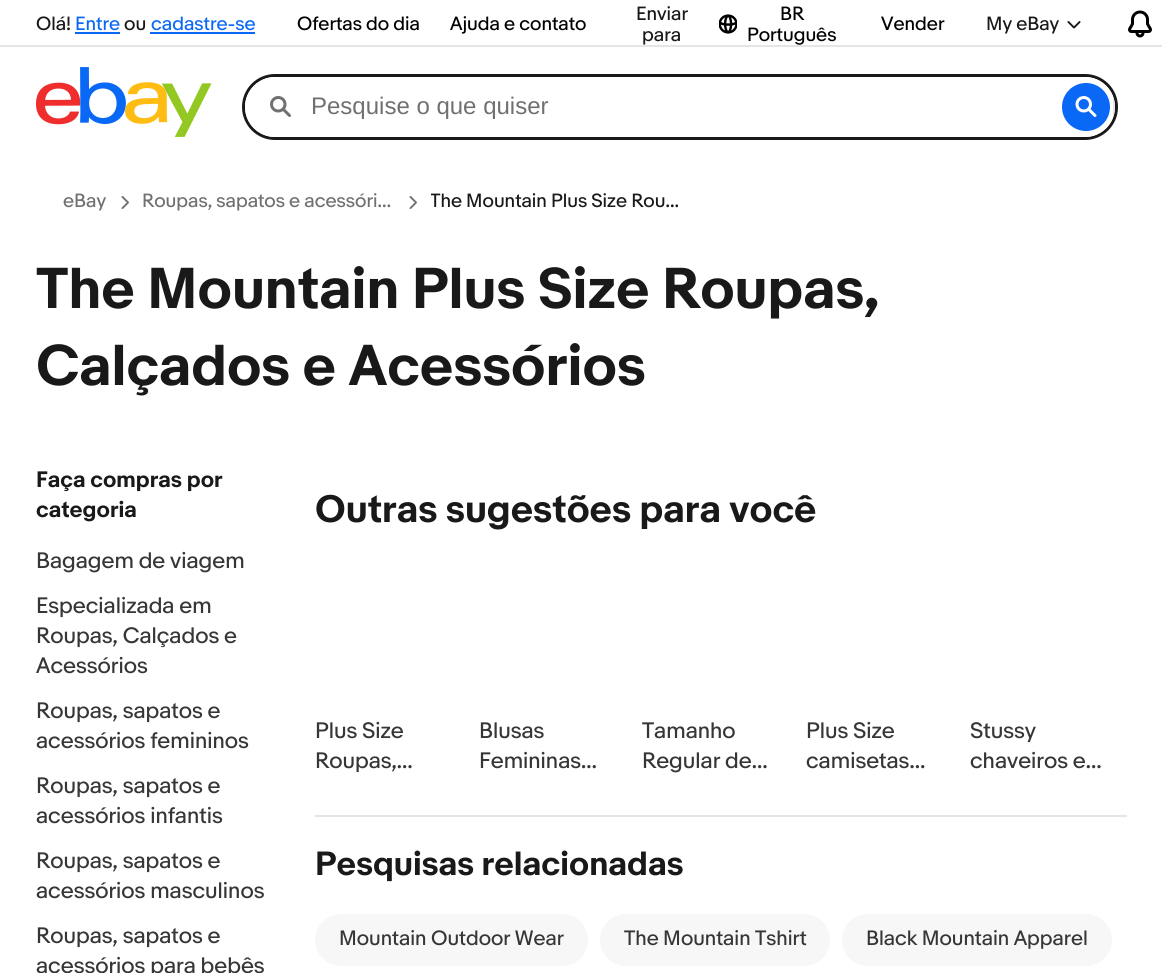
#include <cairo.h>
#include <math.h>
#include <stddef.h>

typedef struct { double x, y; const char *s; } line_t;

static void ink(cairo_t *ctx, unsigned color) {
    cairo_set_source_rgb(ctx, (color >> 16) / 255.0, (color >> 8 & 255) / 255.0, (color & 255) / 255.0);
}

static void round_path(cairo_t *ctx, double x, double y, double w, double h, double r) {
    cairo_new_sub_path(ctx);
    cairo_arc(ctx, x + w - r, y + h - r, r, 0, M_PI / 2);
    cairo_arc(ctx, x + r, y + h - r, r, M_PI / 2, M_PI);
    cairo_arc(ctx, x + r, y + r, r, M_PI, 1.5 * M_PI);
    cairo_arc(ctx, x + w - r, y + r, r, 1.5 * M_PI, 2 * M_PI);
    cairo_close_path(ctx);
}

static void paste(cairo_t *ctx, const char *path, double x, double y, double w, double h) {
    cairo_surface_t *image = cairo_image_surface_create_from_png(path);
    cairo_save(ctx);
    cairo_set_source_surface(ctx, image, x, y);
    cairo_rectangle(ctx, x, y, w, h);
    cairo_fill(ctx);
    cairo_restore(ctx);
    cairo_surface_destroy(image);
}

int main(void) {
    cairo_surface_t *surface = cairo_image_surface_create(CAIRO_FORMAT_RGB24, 1162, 973);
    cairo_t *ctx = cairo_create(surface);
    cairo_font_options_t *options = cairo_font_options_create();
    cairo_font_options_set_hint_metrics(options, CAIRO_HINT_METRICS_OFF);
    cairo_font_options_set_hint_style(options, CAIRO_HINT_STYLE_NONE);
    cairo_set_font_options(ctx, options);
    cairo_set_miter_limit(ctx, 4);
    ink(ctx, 0xFFFFFF);
    cairo_paint(ctx);
    cairo_select_font_face(ctx, "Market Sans", CAIRO_FONT_SLANT_NORMAL, CAIRO_FONT_WEIGHT_NORMAL);
    cairo_set_font_size(ctx, 18);
    ink(ctx, 0x191919);
    cairo_move_to(ctx, 36, 30);
    cairo_show_text(ctx, "Olá!");
    ink(ctx, 0x0968F6);
    cairo_move_to(ctx, 75, 30);
    cairo_show_text(ctx, "Entre");
    cairo_rectangle(ctx, 75, 32, 45, 2);
    cairo_fill(ctx);
    ink(ctx, 0x191919);
    cairo_move_to(ctx, 124, 30);
    cairo_show_text(ctx, "ou");
    ink(ctx, 0x0968F6);
    cairo_rectangle(ctx, 150, 32, 105, 2);
    cairo_fill(ctx);
    cairo_move_to(ctx, 151, 30);
    cairo_show_text(ctx, "cadastre-se");
    ink(ctx, 0x000000);
    cairo_move_to(ctx, 297, 30);
    cairo_show_text(ctx, "Ofertas do dia");
    cairo_move_to(ctx, 450, 30);
    cairo_show_text(ctx, "Ajuda e contato");
    ink(ctx, 0x191919);
    cairo_move_to(ctx, 636, 20);
    cairo_show_text(ctx, "Enviar");
    cairo_move_to(ctx, 642, 41);
    cairo_show_text(ctx, "para");
    paste(ctx, "media/1.png", 719, 14, 18, 20);
    ink(ctx, 0x000000);
    {
        static const line_t items[] = {
            {780, 20, "BR"},
            {747, 41, "Português"},
            {881, 30, "Vender"},
        };
        for (size_t i = 0; i < sizeof items / sizeof *items; i++) {
            cairo_move_to(ctx, items[i].x, items[i].y);
            cairo_show_text(ctx, items[i].s);
        }
    }
    ink(ctx, 0x191919);
    cairo_move_to(ctx, 986, 30);
    cairo_show_text(ctx, "My eBay");
    paste(ctx, "media/2.png", 1067, 21, 14, 8);
    paste(ctx, "media/3.png", 1128, 10, 24, 28);
    paste(ctx, "media/4.png", 36, 67, 176, 70);
    round_path(ctx, 243.5, 75.5, 873, 63, 31.5);
    cairo_set_line_width(ctx, 3);
    cairo_stroke(ctx);
    cairo_save(ctx);
    round_path(ctx, 245, 77, 870, 60, 30);
    cairo_clip(ctx);
    ink(ctx, 0xE5E5E5);
    cairo_rectangle(ctx, 1113, 96, 2, 22);
    cairo_fill(ctx);
    ink(ctx, 0xFFFFFF);
    cairo_new_path(ctx);
    cairo_move_to(ctx, 275, 77);
    cairo_line_to(ctx, 1113, 77);
    cairo_line_to(ctx, 1113, 137);
    cairo_line_to(ctx, 275, 137);
    cairo_curve_to(ctx, 258.5, 137, 245, 123.5, 245, 107);
    cairo_curve_to(ctx, 245, 90.5, 258.5, 77, 275, 77);
    cairo_close_path(ctx);
    cairo_fill(ctx);
    cairo_restore(ctx);
    paste(ctx, "media/5.png", 270, 96, 21, 21);
    cairo_select_font_face(ctx, "Liberation Sans", CAIRO_FONT_SLANT_NORMAL, CAIRO_FONT_WEIGHT_NORMAL);
    cairo_set_font_size(ctx, 24);
    ink(ctx, 0x707070);
    cairo_move_to(ctx, 311, 114);
    cairo_show_text(ctx, "Pesquise o que quiser");
    ink(ctx, 0x0968F6);
    cairo_new_path(ctx);
    cairo_arc(ctx, 1086, 107, 23, 0, 2 * M_PI);
    cairo_fill_preserve(ctx);
    cairo_set_line_width(ctx, 2);
    cairo_stroke(ctx);
    paste(ctx, "media/6.png", 1075, 96, 22, 21);
    cairo_select_font_face(ctx, "Market Sans", CAIRO_FONT_SLANT_NORMAL, CAIRO_FONT_WEIGHT_NORMAL);
    cairo_set_font_size(ctx, 18);
    ink(ctx, 0x707070);
    cairo_move_to(ctx, 63, 207);
    cairo_show_text(ctx, "eBay");
    paste(ctx, "media/7.png", 121, 196, 8, 13);
    cairo_move_to(ctx, 142, 207);
    cairo_show_text(ctx, "Roupas, sapatos e acessóri…");
    paste(ctx, "media/7.png", 409, 196, 8, 13);
    cairo_save(ctx);
    cairo_rectangle(ctx, 431, 189, 252, 26);
    cairo_clip(ctx);
    ink(ctx, 0x191919);
    cairo_move_to(ctx, 430, 207);
    cairo_show_text(ctx, "The Mountain Plus Size Rou…");
    cairo_restore(ctx);
    cairo_select_font_face(ctx, "Market Sans", CAIRO_FONT_SLANT_NORMAL, CAIRO_FONT_WEIGHT_BOLD);
    cairo_set_font_size(ctx, 54);
    ink(ctx, 0x191919);
    cairo_move_to(ctx, 36, 308);
    cairo_show_text(ctx, "The Mountain Plus Size Roupas,");
    cairo_move_to(ctx, 36, 385);
    cairo_show_text(ctx, "Calçados e Acessórios");
    cairo_set_font_size(ctx, 21);
    cairo_move_to(ctx, 36, 487);
    cairo_show_text(ctx, "Faça compras por");
    cairo_move_to(ctx, 36, 517);
    cairo_show_text(ctx, "categoria");
    cairo_select_font_face(ctx, "Market Sans", CAIRO_FONT_SLANT_NORMAL, CAIRO_FONT_WEIGHT_NORMAL);
    ink(ctx, 0x363636);
    {
        static const line_t items[] = {
            {36, 568, "Bagagem de viagem"},
            {36, 613, "Especializada em"},
            {36, 643, "Roupas, Calçados e"},
            {36, 673, "Acessórios"},
            {36, 718, "Roupas, sapatos e"},
            {36, 748, "acessórios femininos"},
            {36, 793, "Roupas, sapatos e"},
            {36, 823, "acessórios infantis"},
            {36, 868, "Roupas, sapatos e"},
            {36, 898, "acessórios masculinos"},
            {36, 943, "Roupas, sapatos e"},
            {36, 973, "acessórios para bebês"},
        };
        for (size_t i = 0; i < sizeof items / sizeof *items; i++) {
            cairo_move_to(ctx, items[i].x, items[i].y);
            cairo_show_text(ctx, items[i].s);
        }
    }
    ink(ctx, 0xE5E5E5);
    cairo_rectangle(ctx, 315, 815, 812, 2);
    cairo_fill(ctx);
    cairo_select_font_face(ctx, "Market Sans", CAIRO_FONT_SLANT_NORMAL, CAIRO_FONT_WEIGHT_BOLD);
    cairo_set_font_size(ctx, 36);
    ink(ctx, 0x191919);
    cairo_move_to(ctx, 315, 522);
    cairo_show_text(ctx, "Outras sugestões para você");
    cairo_select_font_face(ctx, "Market Sans", CAIRO_FONT_SLANT_NORMAL, CAIRO_FONT_WEIGHT_NORMAL);
    cairo_set_font_size(ctx, 21);
    ink(ctx, 0x363636);
    {
        static const line_t items[] = {
            {315, 738, "Plus Size"},
            {315, 768, "Roupas,…"},
            {479, 738, "Blusas"},
            {479, 768, "Femininas…"},
            {642, 738, "Tamanho"},
            {642, 768, "Regular de…"},
            {806, 738, "Plus Size"},
            {806, 768, "camisetas…"},
            {970, 738, "Stussy"},
            {970, 768, "chaveiros e…"},
        };
        for (size_t i = 0; i < sizeof items / sizeof *items; i++) {
            cairo_move_to(ctx, items[i].x, items[i].y);
            cairo_show_text(ctx, items[i].s);
        }
    }
    cairo_select_font_face(ctx, "Market Sans", CAIRO_FONT_SLANT_NORMAL, CAIRO_FONT_WEIGHT_BOLD);
    cairo_set_font_size(ctx, 31.5);
    ink(ctx, 0x191919);
    cairo_move_to(ctx, 315, 875);
    cairo_show_text(ctx, "Pesquisas relacionadas");
    ink(ctx, 0xF7F7F7);
    round_path(ctx, 315, 914, 273, 52, 26);
    cairo_fill(ctx);
    cairo_select_font_face(ctx, "Market Sans", CAIRO_FONT_SLANT_NORMAL, CAIRO_FONT_WEIGHT_NORMAL);
    cairo_set_font_size(ctx, 19.5);
    ink(ctx, 0x363636);
    cairo_move_to(ctx, 339, 945);
    cairo_show_text(ctx, "Mountain Outdoor Wear");
    ink(ctx, 0xF7F7F7);
    round_path(ctx, 600, 914, 230, 52, 26);
    cairo_fill(ctx);
    ink(ctx, 0x363636);
    cairo_move_to(ctx, 624, 945);
    cairo_show_text(ctx, "The Mountain Tshirt");
    ink(ctx, 0xF7F7F7);
    round_path(ctx, 842, 914, 270, 52, 26);
    cairo_fill(ctx);
    ink(ctx, 0x363636);
    cairo_move_to(ctx, 866, 945);
    cairo_show_text(ctx, "Black Mountain Apparel");
    ink(ctx, 0xE5E5E5);
    cairo_rectangle(ctx, 0, 45, 1162, 2);
    cairo_fill(ctx);
    cairo_surface_write_to_png(surface, "image.png");
    cairo_font_options_destroy(options);
    cairo_destroy(ctx);
    cairo_surface_destroy(surface);
    return 0;
}
